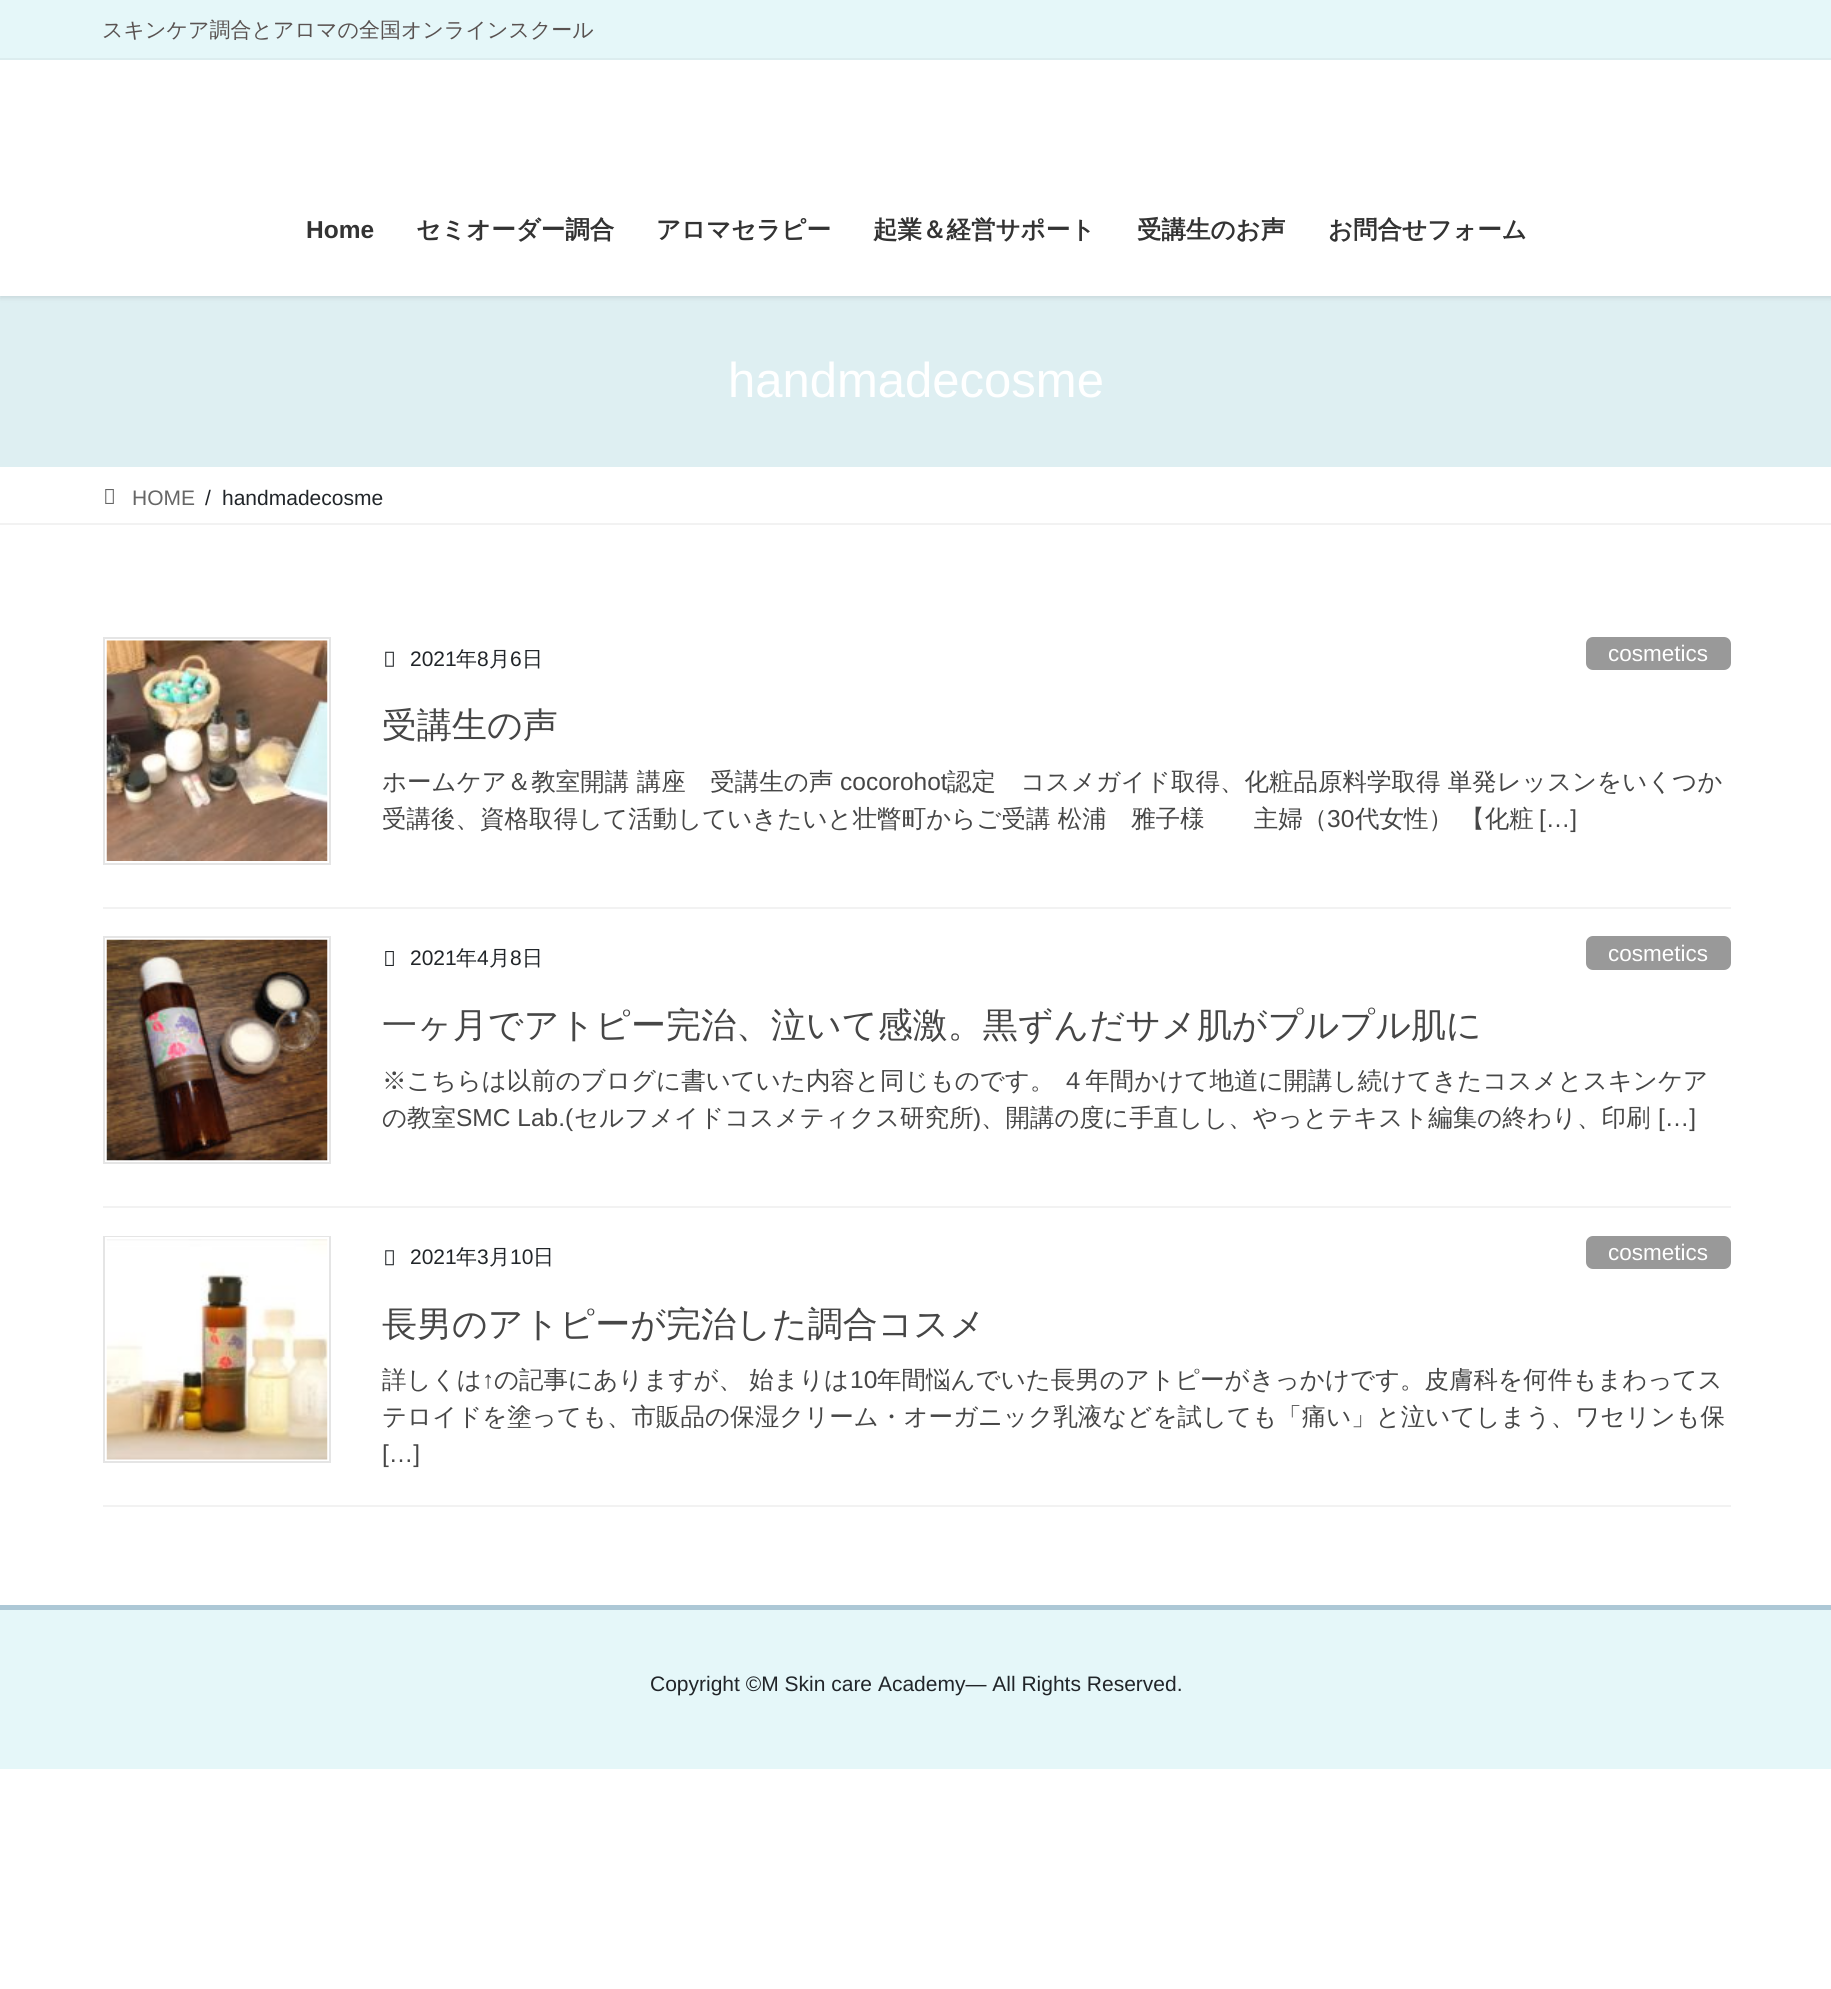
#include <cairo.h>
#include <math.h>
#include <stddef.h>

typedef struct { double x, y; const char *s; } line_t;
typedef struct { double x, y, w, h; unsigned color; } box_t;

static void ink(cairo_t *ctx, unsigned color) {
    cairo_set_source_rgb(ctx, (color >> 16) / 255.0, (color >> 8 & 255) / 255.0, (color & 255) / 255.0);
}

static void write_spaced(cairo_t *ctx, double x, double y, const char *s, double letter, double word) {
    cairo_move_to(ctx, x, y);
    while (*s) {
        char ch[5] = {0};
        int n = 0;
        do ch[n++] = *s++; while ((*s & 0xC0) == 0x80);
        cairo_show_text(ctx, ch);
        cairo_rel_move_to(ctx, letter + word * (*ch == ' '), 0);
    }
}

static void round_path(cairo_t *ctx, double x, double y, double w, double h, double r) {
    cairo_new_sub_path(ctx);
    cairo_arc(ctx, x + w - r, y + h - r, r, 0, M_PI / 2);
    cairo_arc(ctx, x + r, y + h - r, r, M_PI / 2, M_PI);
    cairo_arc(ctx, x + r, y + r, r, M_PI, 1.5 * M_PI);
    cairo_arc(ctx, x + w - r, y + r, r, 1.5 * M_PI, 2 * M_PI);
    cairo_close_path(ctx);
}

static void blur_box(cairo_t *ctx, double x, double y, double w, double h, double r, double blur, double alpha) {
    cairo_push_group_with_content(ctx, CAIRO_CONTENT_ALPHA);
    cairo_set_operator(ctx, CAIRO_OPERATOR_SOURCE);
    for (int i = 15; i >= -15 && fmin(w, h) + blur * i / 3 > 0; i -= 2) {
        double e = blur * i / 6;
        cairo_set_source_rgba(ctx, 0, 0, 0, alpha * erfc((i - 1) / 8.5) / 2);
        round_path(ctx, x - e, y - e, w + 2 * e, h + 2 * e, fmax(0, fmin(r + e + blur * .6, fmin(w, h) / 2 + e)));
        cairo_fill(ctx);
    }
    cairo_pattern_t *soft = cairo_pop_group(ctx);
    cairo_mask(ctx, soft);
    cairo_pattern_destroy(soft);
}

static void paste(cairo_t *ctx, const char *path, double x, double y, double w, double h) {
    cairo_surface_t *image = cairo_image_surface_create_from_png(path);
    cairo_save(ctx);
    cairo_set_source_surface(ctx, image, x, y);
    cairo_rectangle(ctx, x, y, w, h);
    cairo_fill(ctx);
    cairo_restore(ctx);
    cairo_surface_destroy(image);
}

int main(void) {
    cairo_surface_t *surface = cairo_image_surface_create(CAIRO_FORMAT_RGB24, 1831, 1989);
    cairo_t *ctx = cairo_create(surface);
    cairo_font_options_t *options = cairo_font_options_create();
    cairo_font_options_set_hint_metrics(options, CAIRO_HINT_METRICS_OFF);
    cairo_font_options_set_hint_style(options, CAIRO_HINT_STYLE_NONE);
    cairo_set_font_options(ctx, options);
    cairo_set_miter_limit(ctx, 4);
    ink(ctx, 0xFFFFFF);
    cairo_paint(ctx);
    ink(ctx, 0xDEEFF2);
    cairo_rectangle(ctx, 0, 296, 1831, 171);
    cairo_fill(ctx);
    ink(ctx, 0x000000);
    blur_box(ctx, 0, -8, 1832, 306, 0, 2.5, 0.1);
    {
        static const box_t items[] = {
            {0, 60, 1831, 236, 0xFFFFFF},
            {0, 0, 1831, 58, 0xE5F7F9},
            {0, 58, 1831, 2, 0xDCEDEF},
        };
        for (size_t i = 0; i < sizeof items / sizeof *items; i++) {
            ink(ctx, items[i].color);
            cairo_rectangle(ctx, items[i].x, items[i].y, items[i].w, items[i].h);
            cairo_fill(ctx);
        }
    }
    cairo_select_font_face(ctx, "WenQuanYi Zen Hei Medium", CAIRO_FONT_SLANT_NORMAL, CAIRO_FONT_WEIGHT_NORMAL);
    cairo_set_font_size(ctx, 21);
    ink(ctx, 0x595251);
    cairo_move_to(ctx, 102, 37);
    cairo_show_text(ctx, "スキンケア調合とアロマの全国オンラインスクール");
    cairo_select_font_face(ctx, "Liberation Sans", CAIRO_FONT_SLANT_NORMAL, CAIRO_FONT_WEIGHT_BOLD);
    cairo_set_font_size(ctx, 24.5);
    ink(ctx, 0x333333);
    cairo_move_to(ctx, 306, 238);
    cairo_show_text(ctx, "Home");
    cairo_select_font_face(ctx, "WenQuanYi Zen Hei", CAIRO_FONT_SLANT_NORMAL, CAIRO_FONT_WEIGHT_BOLD);
    {
        static const line_t items[] = {
            {416, 238, "セミオーダー調合"},
            {656, 238, "アロマセラピー"},
            {873, 238, "起業＆経営サポート"},
            {1137, 238, "受講生のお声"},
            {1328, 238, "お問合せフォーム"},
        };
        for (size_t i = 0; i < sizeof items / sizeof *items; i++) {
            cairo_move_to(ctx, items[i].x, items[i].y);
            cairo_show_text(ctx, items[i].s);
        }
    }
    cairo_select_font_face(ctx, "Liberation Sans", CAIRO_FONT_SLANT_NORMAL, CAIRO_FONT_WEIGHT_NORMAL);
    cairo_set_font_size(ctx, 49);
    ink(ctx, 0xFFFFFF);
    cairo_move_to(ctx, 728, 397);
    cairo_show_text(ctx, "handmadecosme");
    ink(ctx, 0xF2F2F2);
    cairo_rectangle(ctx, 0, 523, 1831, 2);
    cairo_fill(ctx);
    paste(ctx, "media/1.png", 105, 489, 9, 15);
    cairo_set_font_size(ctx, 21);
    ink(ctx, 0x666666);
    cairo_move_to(ctx, 132, 505);
    cairo_show_text(ctx, "HOME");
    ink(ctx, 0x212529);
    cairo_move_to(ctx, 205, 505);
    cairo_show_text(ctx, "/");
    cairo_move_to(ctx, 222, 505);
    cairo_show_text(ctx, "handmadecosme");
    ink(ctx, 0xF2F2F2);
    cairo_rectangle(ctx, 103, 907, 1628, 2);
    cairo_fill(ctx);
    cairo_rectangle(ctx, 104, 638, 226, 226);
    ink(ctx, 0xE5E5E5);
    cairo_stroke(ctx);
    paste(ctx, "media/2.png", 106, 640, 222, 221);
    paste(ctx, "media/3.png", 385, 651, 9, 16);
    ink(ctx, 0x212529);
    cairo_move_to(ctx, 410, 666);
    cairo_show_text(ctx, "2021");
    cairo_select_font_face(ctx, "WenQuanYi Zen Hei Medium", CAIRO_FONT_SLANT_NORMAL, CAIRO_FONT_WEIGHT_NORMAL);
    cairo_move_to(ctx, 456, 666);
    cairo_show_text(ctx, "年");
    cairo_select_font_face(ctx, "Liberation Sans", CAIRO_FONT_SLANT_NORMAL, CAIRO_FONT_WEIGHT_NORMAL);
    cairo_move_to(ctx, 477, 666);
    cairo_show_text(ctx, "8");
    cairo_select_font_face(ctx, "WenQuanYi Zen Hei Medium", CAIRO_FONT_SLANT_NORMAL, CAIRO_FONT_WEIGHT_NORMAL);
    cairo_move_to(ctx, 489, 666);
    cairo_show_text(ctx, "月");
    cairo_select_font_face(ctx, "Liberation Sans", CAIRO_FONT_SLANT_NORMAL, CAIRO_FONT_WEIGHT_NORMAL);
    cairo_move_to(ctx, 510, 666);
    cairo_show_text(ctx, "6");
    cairo_select_font_face(ctx, "WenQuanYi Zen Hei Medium", CAIRO_FONT_SLANT_NORMAL, CAIRO_FONT_WEIGHT_NORMAL);
    cairo_move_to(ctx, 522, 666);
    cairo_show_text(ctx, "日");
    ink(ctx, 0x999999);
    round_path(ctx, 1586, 637, 145, 33, 7);
    cairo_fill(ctx);
    cairo_select_font_face(ctx, "Liberation Sans", CAIRO_FONT_SLANT_NORMAL, CAIRO_FONT_WEIGHT_NORMAL);
    cairo_set_font_size(ctx, 22.5);
    ink(ctx, 0xFFFFFF);
    cairo_move_to(ctx, 1608, 661);
    cairo_show_text(ctx, "cosmetics");
    cairo_select_font_face(ctx, "WenQuanYi Zen Hei Medium", CAIRO_FONT_SLANT_NORMAL, CAIRO_FONT_WEIGHT_NORMAL);
    cairo_set_font_size(ctx, 35);
    ink(ctx, 0x464646);
    cairo_move_to(ctx, 382, 737);
    cairo_show_text(ctx, "受講生の声");
    cairo_set_font_size(ctx, 24.5);
    cairo_move_to(ctx, 382, 790);
    cairo_show_text(ctx, "ホームケア＆教室開講 講座　受講生の声");
    cairo_select_font_face(ctx, "Liberation Sans", CAIRO_FONT_SLANT_NORMAL, CAIRO_FONT_WEIGHT_NORMAL);
    cairo_move_to(ctx, 840, 790);
    cairo_show_text(ctx, "cocorohot");
    cairo_select_font_face(ctx, "WenQuanYi Zen Hei Medium", CAIRO_FONT_SLANT_NORMAL, CAIRO_FONT_WEIGHT_NORMAL);
    cairo_move_to(ctx, 947, 790);
    cairo_show_text(ctx, "認定　コスメガイド取得、化粧品原料学取得 単発レッスンをいくつか");
    cairo_move_to(ctx, 382, 827);
    cairo_show_text(ctx, "受講後、資格取得して活動していきたいと壮瞥町からご受講 松浦　雅子様　　主婦（");
    cairo_select_font_face(ctx, "Liberation Sans", CAIRO_FONT_SLANT_NORMAL, CAIRO_FONT_WEIGHT_NORMAL);
    cairo_move_to(ctx, 1327, 827);
    cairo_show_text(ctx, "30");
    cairo_select_font_face(ctx, "WenQuanYi Zen Hei Medium", CAIRO_FONT_SLANT_NORMAL, CAIRO_FONT_WEIGHT_NORMAL);
    cairo_move_to(ctx, 1355, 827);
    cairo_show_text(ctx, "代女性） 【化粧");
    cairo_select_font_face(ctx, "Liberation Sans", CAIRO_FONT_SLANT_NORMAL, CAIRO_FONT_WEIGHT_NORMAL);
    cairo_move_to(ctx, 1539, 827);
    cairo_show_text(ctx, "[…]");
    ink(ctx, 0xF2F2F2);
    cairo_rectangle(ctx, 103, 1206, 1628, 2);
    cairo_fill(ctx);
    cairo_rectangle(ctx, 104, 937, 226, 226);
    ink(ctx, 0xE5E5E5);
    cairo_stroke(ctx);
    paste(ctx, "media/4.png", 106, 939, 222, 222);
    paste(ctx, "media/5.png", 385, 951, 9, 15);
    cairo_set_font_size(ctx, 21);
    ink(ctx, 0x212529);
    cairo_move_to(ctx, 410, 965);
    cairo_show_text(ctx, "2021");
    cairo_select_font_face(ctx, "WenQuanYi Zen Hei Medium", CAIRO_FONT_SLANT_NORMAL, CAIRO_FONT_WEIGHT_NORMAL);
    cairo_move_to(ctx, 456, 965);
    cairo_show_text(ctx, "年");
    cairo_select_font_face(ctx, "Liberation Sans", CAIRO_FONT_SLANT_NORMAL, CAIRO_FONT_WEIGHT_NORMAL);
    cairo_move_to(ctx, 477, 965);
    cairo_show_text(ctx, "4");
    cairo_select_font_face(ctx, "WenQuanYi Zen Hei Medium", CAIRO_FONT_SLANT_NORMAL, CAIRO_FONT_WEIGHT_NORMAL);
    cairo_move_to(ctx, 489, 965);
    cairo_show_text(ctx, "月");
    cairo_select_font_face(ctx, "Liberation Sans", CAIRO_FONT_SLANT_NORMAL, CAIRO_FONT_WEIGHT_NORMAL);
    cairo_move_to(ctx, 510, 965);
    cairo_show_text(ctx, "8");
    cairo_select_font_face(ctx, "WenQuanYi Zen Hei Medium", CAIRO_FONT_SLANT_NORMAL, CAIRO_FONT_WEIGHT_NORMAL);
    cairo_move_to(ctx, 522, 965);
    cairo_show_text(ctx, "日");
    ink(ctx, 0x999999);
    round_path(ctx, 1586, 936, 145, 34, 7);
    cairo_fill(ctx);
    cairo_select_font_face(ctx, "Liberation Sans", CAIRO_FONT_SLANT_NORMAL, CAIRO_FONT_WEIGHT_NORMAL);
    cairo_set_font_size(ctx, 22.5);
    ink(ctx, 0xFFFFFF);
    cairo_move_to(ctx, 1608, 961);
    cairo_show_text(ctx, "cosmetics");
    cairo_select_font_face(ctx, "WenQuanYi Zen Hei Medium", CAIRO_FONT_SLANT_NORMAL, CAIRO_FONT_WEIGHT_NORMAL);
    cairo_set_font_size(ctx, 35);
    ink(ctx, 0x464646);
    cairo_move_to(ctx, 382, 1037);
    cairo_show_text(ctx, "一ヶ月でアトピー完治、泣いて感激。黒ずんだサメ肌がプルプル肌に");
    cairo_set_font_size(ctx, 24.5);
    write_spaced(ctx, 382, 1089, "※こちらは以前のブログに書いていた内容と同じものです。 ４年間かけて地道に開講し続けてきたコスメとスキンケア", 0, -1);
    cairo_move_to(ctx, 382, 1126);
    cairo_show_text(ctx, "の教室");
    cairo_select_font_face(ctx, "Liberation Sans", CAIRO_FONT_SLANT_NORMAL, CAIRO_FONT_WEIGHT_NORMAL);
    cairo_move_to(ctx, 456, 1126);
    cairo_show_text(ctx, "SMC Lab.(");
    cairo_select_font_face(ctx, "WenQuanYi Zen Hei Medium", CAIRO_FONT_SLANT_NORMAL, CAIRO_FONT_WEIGHT_NORMAL);
    cairo_move_to(ctx, 574, 1126);
    cairo_show_text(ctx, "セルフメイドコスメティクス研究所");
    cairo_select_font_face(ctx, "Liberation Sans", CAIRO_FONT_SLANT_NORMAL, CAIRO_FONT_WEIGHT_NORMAL);
    cairo_move_to(ctx, 973, 1126);
    cairo_show_text(ctx, ")");
    cairo_select_font_face(ctx, "WenQuanYi Zen Hei Medium", CAIRO_FONT_SLANT_NORMAL, CAIRO_FONT_WEIGHT_NORMAL);
    cairo_move_to(ctx, 981, 1126);
    cairo_show_text(ctx, "、開講の度に手直しし、やっとテキスト編集の終わり、印刷");
    cairo_select_font_face(ctx, "Liberation Sans", CAIRO_FONT_SLANT_NORMAL, CAIRO_FONT_WEIGHT_NORMAL);
    cairo_move_to(ctx, 1658, 1126);
    cairo_show_text(ctx, "[…]");
    ink(ctx, 0xF2F2F2);
    cairo_rectangle(ctx, 103, 1505, 1628, 2);
    cairo_fill(ctx);
    cairo_rectangle(ctx, 104, 1237, 226, 225);
    ink(ctx, 0xE5E5E5);
    cairo_stroke(ctx);
    cairo_rectangle(ctx, 106, 1238, 222, 222);
    ink(ctx, 0xFFFFFF);
    cairo_stroke(ctx);
    paste(ctx, "media/6.png", 106, 1239, 222, 221);
    paste(ctx, "media/7.png", 385, 1250, 9, 16);
    cairo_set_font_size(ctx, 21);
    ink(ctx, 0x212529);
    cairo_move_to(ctx, 410, 1264);
    cairo_show_text(ctx, "2021");
    cairo_select_font_face(ctx, "WenQuanYi Zen Hei Medium", CAIRO_FONT_SLANT_NORMAL, CAIRO_FONT_WEIGHT_NORMAL);
    cairo_move_to(ctx, 456, 1264);
    cairo_show_text(ctx, "年");
    cairo_select_font_face(ctx, "Liberation Sans", CAIRO_FONT_SLANT_NORMAL, CAIRO_FONT_WEIGHT_NORMAL);
    cairo_move_to(ctx, 477, 1264);
    cairo_show_text(ctx, "3");
    cairo_select_font_face(ctx, "WenQuanYi Zen Hei Medium", CAIRO_FONT_SLANT_NORMAL, CAIRO_FONT_WEIGHT_NORMAL);
    cairo_move_to(ctx, 489, 1264);
    cairo_show_text(ctx, "月");
    cairo_select_font_face(ctx, "Liberation Sans", CAIRO_FONT_SLANT_NORMAL, CAIRO_FONT_WEIGHT_NORMAL);
    cairo_move_to(ctx, 510, 1264);
    cairo_show_text(ctx, "10");
    cairo_select_font_face(ctx, "WenQuanYi Zen Hei Medium", CAIRO_FONT_SLANT_NORMAL, CAIRO_FONT_WEIGHT_NORMAL);
    cairo_move_to(ctx, 533, 1264);
    cairo_show_text(ctx, "日");
    ink(ctx, 0x999999);
    round_path(ctx, 1586, 1236, 145, 33, 7);
    cairo_fill(ctx);
    cairo_select_font_face(ctx, "Liberation Sans", CAIRO_FONT_SLANT_NORMAL, CAIRO_FONT_WEIGHT_NORMAL);
    cairo_set_font_size(ctx, 22.5);
    ink(ctx, 0xFFFFFF);
    cairo_move_to(ctx, 1608, 1260);
    cairo_show_text(ctx, "cosmetics");
    cairo_select_font_face(ctx, "WenQuanYi Zen Hei Medium", CAIRO_FONT_SLANT_NORMAL, CAIRO_FONT_WEIGHT_NORMAL);
    cairo_set_font_size(ctx, 35);
    ink(ctx, 0x464646);
    cairo_move_to(ctx, 382, 1336);
    cairo_show_text(ctx, "長男のアトピーが完治した調合コスメ");
    cairo_set_font_size(ctx, 24.5);
    cairo_move_to(ctx, 382, 1388);
    cairo_show_text(ctx, "詳しくは");
    cairo_select_font_face(ctx, "Liberation Sans", CAIRO_FONT_SLANT_NORMAL, CAIRO_FONT_WEIGHT_NORMAL);
    cairo_move_to(ctx, 482, 1388);
    cairo_show_text(ctx, "↑");
    cairo_select_font_face(ctx, "WenQuanYi Zen Hei Medium", CAIRO_FONT_SLANT_NORMAL, CAIRO_FONT_WEIGHT_NORMAL);
    write_spaced(ctx, 494, 1388, "の記事にありますが、 始まりは", 0, -1);
    cairo_select_font_face(ctx, "Liberation Sans", CAIRO_FONT_SLANT_NORMAL, CAIRO_FONT_WEIGHT_NORMAL);
    cairo_move_to(ctx, 850, 1388);
    cairo_show_text(ctx, "10");
    cairo_select_font_face(ctx, "WenQuanYi Zen Hei Medium", CAIRO_FONT_SLANT_NORMAL, CAIRO_FONT_WEIGHT_NORMAL);
    cairo_move_to(ctx, 877, 1388);
    cairo_show_text(ctx, "年間悩んでいた長男のアトピーがきっかけです。皮膚科を何件もまわってス");
    cairo_move_to(ctx, 382, 1425);
    cairo_show_text(ctx, "テロイドを塗っても、市販品の保湿クリーム・オーガニック乳液などを試しても「痛い」と泣いてしまう、ワセリンも保");
    cairo_select_font_face(ctx, "Liberation Sans", CAIRO_FONT_SLANT_NORMAL, CAIRO_FONT_WEIGHT_NORMAL);
    cairo_move_to(ctx, 382, 1462);
    cairo_show_text(ctx, "[…]");
    ink(ctx, 0xE5F7F9);
    cairo_rectangle(ctx, 0, 1610, 1831, 159);
    cairo_fill(ctx);
    ink(ctx, 0xADC8D6);
    cairo_rectangle(ctx, 0, 1605, 1831, 5);
    cairo_fill(ctx);
    cairo_set_font_size(ctx, 21);
    ink(ctx, 0x212529);
    cairo_move_to(ctx, 650, 1691);
    cairo_show_text(ctx, "Copyright ©M Skin care Academy— All Rights Reserved.");
    cairo_surface_write_to_png(surface, "image.png");
    cairo_font_options_destroy(options);
    cairo_destroy(ctx);
    cairo_surface_destroy(surface);
    return 0;
}
